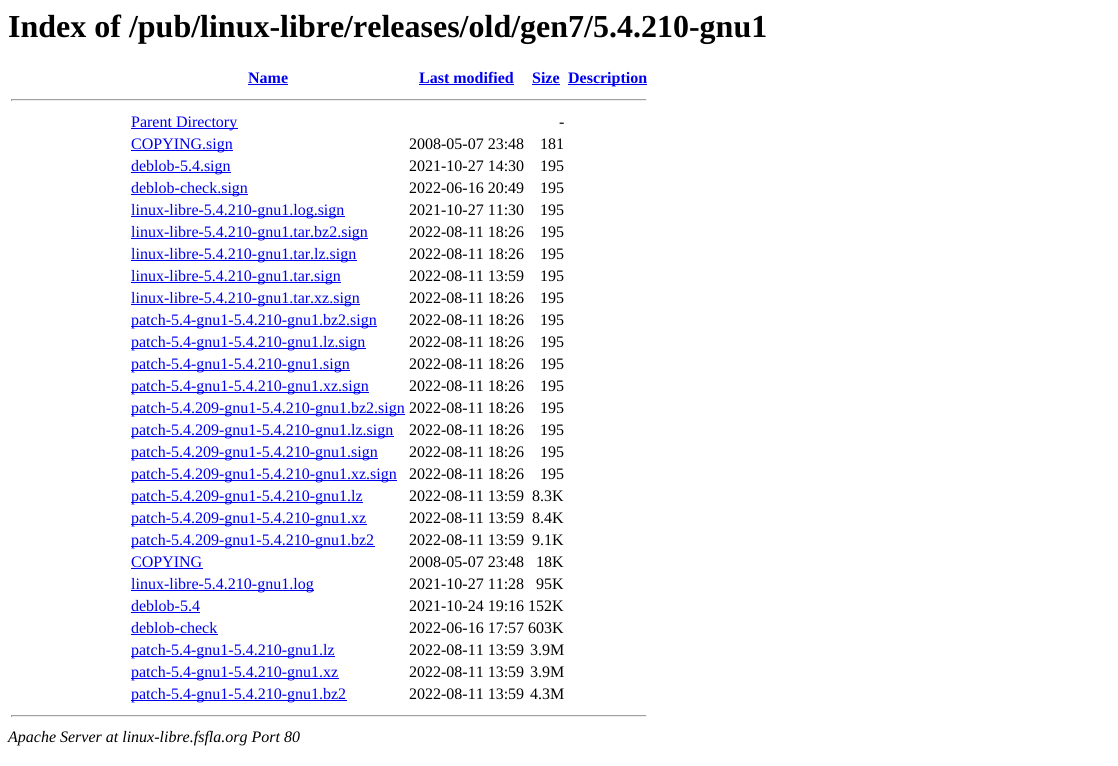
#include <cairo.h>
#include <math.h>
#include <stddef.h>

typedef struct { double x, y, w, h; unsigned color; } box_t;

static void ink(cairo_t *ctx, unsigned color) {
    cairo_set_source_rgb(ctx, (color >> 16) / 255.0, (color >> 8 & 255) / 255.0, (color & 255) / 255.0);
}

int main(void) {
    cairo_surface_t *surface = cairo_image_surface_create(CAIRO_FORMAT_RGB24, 1118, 766);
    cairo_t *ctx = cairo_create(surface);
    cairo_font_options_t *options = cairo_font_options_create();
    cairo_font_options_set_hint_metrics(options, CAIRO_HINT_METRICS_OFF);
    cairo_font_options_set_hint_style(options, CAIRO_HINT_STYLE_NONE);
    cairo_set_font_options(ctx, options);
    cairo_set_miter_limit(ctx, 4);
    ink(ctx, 0xFFFFFF);
    cairo_paint(ctx);
    cairo_select_font_face(ctx, "Liberation Serif", CAIRO_FONT_SLANT_NORMAL, CAIRO_FONT_WEIGHT_BOLD);
    cairo_set_font_size(ctx, 32);
    ink(ctx, 0x000000);
    cairo_move_to(ctx, 8, 37);
    cairo_show_text(ctx, "Index of /pub/linux-libre/releases/old/gen7/5.4.210-gnu1");
    cairo_set_font_size(ctx, 16);
    ink(ctx, 0x0000EE);
    cairo_move_to(ctx, 248, 83);
    cairo_show_text(ctx, "Name");
    cairo_rectangle(ctx, 248, 84, 40, 1);
    cairo_fill(ctx);
    cairo_move_to(ctx, 419, 83);
    cairo_show_text(ctx, "Last modified");
    cairo_rectangle(ctx, 419, 84, 95, 1);
    cairo_fill(ctx);
    cairo_move_to(ctx, 532, 83);
    cairo_show_text(ctx, "Size");
    cairo_rectangle(ctx, 532, 84, 28, 1);
    cairo_fill(ctx);
    cairo_rectangle(ctx, 568, 84, 79, 1);
    cairo_fill(ctx);
    cairo_move_to(ctx, 568, 83);
    cairo_show_text(ctx, "Description");
    {
        static const box_t items[] = {
            {11, 99, 636, 1, 0x9F9F9F},
            {646, 99, 1, 2, 0xEEEEEE},
            {11, 100, 636, 1, 0xEEEEEE},
            {11, 99, 1, 2, 0x9F9F9F},
            {131, 128, 107, 1, 0x0000EE},
        };
        for (size_t i = 0; i < sizeof items / sizeof *items; i++) {
            ink(ctx, items[i].color);
            cairo_rectangle(ctx, items[i].x, items[i].y, items[i].w, items[i].h);
            cairo_fill(ctx);
        }
    }
    cairo_select_font_face(ctx, "Liberation Serif", CAIRO_FONT_SLANT_NORMAL, CAIRO_FONT_WEIGHT_NORMAL);
    cairo_move_to(ctx, 131, 127);
    cairo_show_text(ctx, "Parent Directory");
    ink(ctx, 0x000000);
    cairo_move_to(ctx, 559, 127);
    cairo_show_text(ctx, "-");
    ink(ctx, 0x0000EE);
    cairo_rectangle(ctx, 131, 150, 102, 1);
    cairo_fill(ctx);
    cairo_move_to(ctx, 131, 149);
    cairo_show_text(ctx, "COPYING.sign");
    ink(ctx, 0x000000);
    cairo_move_to(ctx, 409, 149);
    cairo_show_text(ctx, "2008-05-07 23:48");
    cairo_move_to(ctx, 540, 149);
    cairo_show_text(ctx, "181");
    ink(ctx, 0x0000EE);
    cairo_rectangle(ctx, 131, 172, 100, 1);
    cairo_fill(ctx);
    cairo_move_to(ctx, 131, 171);
    cairo_show_text(ctx, "deblob-5.4.sign");
    ink(ctx, 0x000000);
    cairo_move_to(ctx, 409, 171);
    cairo_show_text(ctx, "2021-10-27 14:30");
    cairo_move_to(ctx, 540, 171);
    cairo_show_text(ctx, "195");
    ink(ctx, 0x0000EE);
    cairo_rectangle(ctx, 131, 194, 117, 1);
    cairo_fill(ctx);
    cairo_move_to(ctx, 131, 193);
    cairo_show_text(ctx, "deblob-check.sign");
    ink(ctx, 0x000000);
    cairo_move_to(ctx, 409, 193);
    cairo_show_text(ctx, "2022-06-16 20:49");
    cairo_move_to(ctx, 540, 193);
    cairo_show_text(ctx, "195");
    ink(ctx, 0x0000EE);
    cairo_rectangle(ctx, 131, 216, 214, 1);
    cairo_fill(ctx);
    cairo_move_to(ctx, 131, 215);
    cairo_show_text(ctx, "linux-libre-5.4.210-gnu1.log.sign");
    ink(ctx, 0x000000);
    cairo_move_to(ctx, 409, 215);
    cairo_show_text(ctx, "2021-10-27 11:30");
    cairo_move_to(ctx, 540, 215);
    cairo_show_text(ctx, "195");
    ink(ctx, 0x0000EE);
    cairo_rectangle(ctx, 131, 238, 237, 1);
    cairo_fill(ctx);
    cairo_move_to(ctx, 131, 237);
    cairo_show_text(ctx, "linux-libre-5.4.210-gnu1.tar.bz2.sign");
    ink(ctx, 0x000000);
    cairo_move_to(ctx, 409, 237);
    cairo_show_text(ctx, "2022-08-11 18:26");
    cairo_move_to(ctx, 540, 237);
    cairo_show_text(ctx, "195");
    ink(ctx, 0x0000EE);
    cairo_rectangle(ctx, 131, 260, 226, 1);
    cairo_fill(ctx);
    cairo_move_to(ctx, 131, 259);
    cairo_show_text(ctx, "linux-libre-5.4.210-gnu1.tar.lz.sign");
    ink(ctx, 0x000000);
    cairo_move_to(ctx, 409, 259);
    cairo_show_text(ctx, "2022-08-11 18:26");
    cairo_move_to(ctx, 540, 259);
    cairo_show_text(ctx, "195");
    ink(ctx, 0x0000EE);
    cairo_rectangle(ctx, 131, 282, 210, 1);
    cairo_fill(ctx);
    cairo_move_to(ctx, 131, 281);
    cairo_show_text(ctx, "linux-libre-5.4.210-gnu1.tar.sign");
    ink(ctx, 0x000000);
    cairo_move_to(ctx, 409, 281);
    cairo_show_text(ctx, "2022-08-11 13:59");
    cairo_move_to(ctx, 540, 281);
    cairo_show_text(ctx, "195");
    ink(ctx, 0x0000EE);
    cairo_rectangle(ctx, 131, 304, 229, 1);
    cairo_fill(ctx);
    cairo_move_to(ctx, 131, 303);
    cairo_show_text(ctx, "linux-libre-5.4.210-gnu1.tar.xz.sign");
    ink(ctx, 0x000000);
    cairo_move_to(ctx, 409, 303);
    cairo_show_text(ctx, "2022-08-11 18:26");
    cairo_move_to(ctx, 540, 303);
    cairo_show_text(ctx, "195");
    ink(ctx, 0x0000EE);
    cairo_rectangle(ctx, 131, 326, 246, 1);
    cairo_fill(ctx);
    cairo_move_to(ctx, 131, 325);
    cairo_show_text(ctx, "patch-5.4-gnu1-5.4.210-gnu1.bz2.sign");
    ink(ctx, 0x000000);
    cairo_move_to(ctx, 409, 325);
    cairo_show_text(ctx, "2022-08-11 18:26");
    cairo_move_to(ctx, 540, 325);
    cairo_show_text(ctx, "195");
    ink(ctx, 0x0000EE);
    cairo_rectangle(ctx, 131, 348, 235, 1);
    cairo_fill(ctx);
    cairo_move_to(ctx, 131, 347);
    cairo_show_text(ctx, "patch-5.4-gnu1-5.4.210-gnu1.lz.sign");
    ink(ctx, 0x000000);
    cairo_move_to(ctx, 409, 347);
    cairo_show_text(ctx, "2022-08-11 18:26");
    cairo_move_to(ctx, 540, 347);
    cairo_show_text(ctx, "195");
    ink(ctx, 0x0000EE);
    cairo_rectangle(ctx, 131, 370, 219, 1);
    cairo_fill(ctx);
    cairo_move_to(ctx, 131, 369);
    cairo_show_text(ctx, "patch-5.4-gnu1-5.4.210-gnu1.sign");
    ink(ctx, 0x000000);
    cairo_move_to(ctx, 409, 369);
    cairo_show_text(ctx, "2022-08-11 18:26");
    cairo_move_to(ctx, 540, 369);
    cairo_show_text(ctx, "195");
    ink(ctx, 0x0000EE);
    cairo_rectangle(ctx, 131, 392, 238, 1);
    cairo_fill(ctx);
    cairo_move_to(ctx, 131, 391);
    cairo_show_text(ctx, "patch-5.4-gnu1-5.4.210-gnu1.xz.sign");
    ink(ctx, 0x000000);
    cairo_move_to(ctx, 409, 391);
    cairo_show_text(ctx, "2022-08-11 18:26");
    cairo_move_to(ctx, 540, 391);
    cairo_show_text(ctx, "195");
    ink(ctx, 0x0000EE);
    cairo_rectangle(ctx, 131, 414, 274, 1);
    cairo_fill(ctx);
    cairo_move_to(ctx, 131, 413);
    cairo_show_text(ctx, "patch-5.4.209-gnu1-5.4.210-gnu1.bz2.sign");
    ink(ctx, 0x000000);
    cairo_move_to(ctx, 409, 413);
    cairo_show_text(ctx, "2022-08-11 18:26");
    cairo_move_to(ctx, 540, 413);
    cairo_show_text(ctx, "195");
    ink(ctx, 0x0000EE);
    cairo_rectangle(ctx, 131, 436, 263, 1);
    cairo_fill(ctx);
    cairo_move_to(ctx, 131, 435);
    cairo_show_text(ctx, "patch-5.4.209-gnu1-5.4.210-gnu1.lz.sign");
    ink(ctx, 0x000000);
    cairo_move_to(ctx, 409, 435);
    cairo_show_text(ctx, "2022-08-11 18:26");
    cairo_move_to(ctx, 540, 435);
    cairo_show_text(ctx, "195");
    ink(ctx, 0x0000EE);
    cairo_rectangle(ctx, 131, 458, 247, 1);
    cairo_fill(ctx);
    cairo_move_to(ctx, 131, 457);
    cairo_show_text(ctx, "patch-5.4.209-gnu1-5.4.210-gnu1.sign");
    ink(ctx, 0x000000);
    cairo_move_to(ctx, 409, 457);
    cairo_show_text(ctx, "2022-08-11 18:26");
    cairo_move_to(ctx, 540, 457);
    cairo_show_text(ctx, "195");
    ink(ctx, 0x0000EE);
    cairo_rectangle(ctx, 131, 480, 266, 1);
    cairo_fill(ctx);
    cairo_move_to(ctx, 131, 479);
    cairo_show_text(ctx, "patch-5.4.209-gnu1-5.4.210-gnu1.xz.sign");
    ink(ctx, 0x000000);
    cairo_move_to(ctx, 409, 479);
    cairo_show_text(ctx, "2022-08-11 18:26");
    cairo_move_to(ctx, 540, 479);
    cairo_show_text(ctx, "195");
    ink(ctx, 0x0000EE);
    cairo_rectangle(ctx, 131, 502, 232, 1);
    cairo_fill(ctx);
    cairo_move_to(ctx, 131, 501);
    cairo_show_text(ctx, "patch-5.4.209-gnu1-5.4.210-gnu1.lz");
    ink(ctx, 0x000000);
    cairo_move_to(ctx, 409, 501);
    cairo_show_text(ctx, "2022-08-11 13:59");
    cairo_move_to(ctx, 532, 501);
    cairo_show_text(ctx, "8.3K");
    ink(ctx, 0x0000EE);
    cairo_rectangle(ctx, 131, 524, 236, 1);
    cairo_fill(ctx);
    cairo_move_to(ctx, 131, 523);
    cairo_show_text(ctx, "patch-5.4.209-gnu1-5.4.210-gnu1.xz");
    ink(ctx, 0x000000);
    cairo_move_to(ctx, 409, 523);
    cairo_show_text(ctx, "2022-08-11 13:59");
    cairo_move_to(ctx, 532, 523);
    cairo_show_text(ctx, "8.4K");
    ink(ctx, 0x0000EE);
    cairo_rectangle(ctx, 131, 546, 244, 1);
    cairo_fill(ctx);
    cairo_move_to(ctx, 131, 545);
    cairo_show_text(ctx, "patch-5.4.209-gnu1-5.4.210-gnu1.bz2");
    ink(ctx, 0x000000);
    cairo_move_to(ctx, 409, 545);
    cairo_show_text(ctx, "2022-08-11 13:59");
    cairo_move_to(ctx, 532, 545);
    cairo_show_text(ctx, "9.1K");
    ink(ctx, 0x0000EE);
    cairo_move_to(ctx, 131, 567);
    cairo_show_text(ctx, "COPYING");
    cairo_rectangle(ctx, 131, 568, 72, 1);
    cairo_fill(ctx);
    ink(ctx, 0x000000);
    cairo_move_to(ctx, 409, 567);
    cairo_show_text(ctx, "2008-05-07 23:48");
    cairo_move_to(ctx, 536, 567);
    cairo_show_text(ctx, "18K");
    ink(ctx, 0x0000EE);
    cairo_rectangle(ctx, 131, 590, 183, 1);
    cairo_fill(ctx);
    cairo_move_to(ctx, 131, 589);
    cairo_show_text(ctx, "linux-libre-5.4.210-gnu1.log");
    ink(ctx, 0x000000);
    cairo_move_to(ctx, 409, 589);
    cairo_show_text(ctx, "2021-10-27 11:28");
    cairo_move_to(ctx, 536, 589);
    cairo_show_text(ctx, "95K");
    ink(ctx, 0x0000EE);
    cairo_move_to(ctx, 131, 611);
    cairo_show_text(ctx, "deblob-5.4");
    cairo_rectangle(ctx, 131, 612, 69, 1);
    cairo_fill(ctx);
    ink(ctx, 0x000000);
    cairo_move_to(ctx, 409, 611);
    cairo_show_text(ctx, "2021-10-24 19:16 152K");
    ink(ctx, 0x0000EE);
    cairo_move_to(ctx, 131, 633);
    cairo_show_text(ctx, "deblob-check");
    cairo_rectangle(ctx, 131, 634, 87, 1);
    cairo_fill(ctx);
    ink(ctx, 0x000000);
    cairo_move_to(ctx, 409, 633);
    cairo_show_text(ctx, "2022-06-16 17:57 603K");
    ink(ctx, 0x0000EE);
    cairo_rectangle(ctx, 131, 656, 204, 1);
    cairo_fill(ctx);
    cairo_move_to(ctx, 131, 655);
    cairo_show_text(ctx, "patch-5.4-gnu1-5.4.210-gnu1.lz");
    ink(ctx, 0x000000);
    cairo_move_to(ctx, 409, 655);
    cairo_show_text(ctx, "2022-08-11 13:59");
    cairo_move_to(ctx, 530, 655);
    cairo_show_text(ctx, "3.9M");
    ink(ctx, 0x0000EE);
    cairo_rectangle(ctx, 131, 678, 208, 1);
    cairo_fill(ctx);
    cairo_move_to(ctx, 131, 677);
    cairo_show_text(ctx, "patch-5.4-gnu1-5.4.210-gnu1.xz");
    ink(ctx, 0x000000);
    cairo_move_to(ctx, 409, 677);
    cairo_show_text(ctx, "2022-08-11 13:59");
    cairo_move_to(ctx, 530, 677);
    cairo_show_text(ctx, "3.9M");
    ink(ctx, 0x0000EE);
    cairo_rectangle(ctx, 131, 700, 216, 1);
    cairo_fill(ctx);
    cairo_move_to(ctx, 131, 699);
    cairo_show_text(ctx, "patch-5.4-gnu1-5.4.210-gnu1.bz2");
    ink(ctx, 0x000000);
    cairo_move_to(ctx, 409, 699);
    cairo_show_text(ctx, "2022-08-11 13:59");
    cairo_move_to(ctx, 530, 699);
    cairo_show_text(ctx, "4.3M");
    {
        static const box_t items[] = {
            {11, 715, 636, 1, 0x9F9F9F},
            {646, 715, 1, 2, 0xEEEEEE},
            {11, 716, 636, 1, 0xEEEEEE},
            {11, 715, 1, 2, 0x9F9F9F},
        };
        for (size_t i = 0; i < sizeof items / sizeof *items; i++) {
            ink(ctx, items[i].color);
            cairo_rectangle(ctx, items[i].x, items[i].y, items[i].w, items[i].h);
            cairo_fill(ctx);
        }
    }
    cairo_select_font_face(ctx, "Liberation Serif", CAIRO_FONT_SLANT_ITALIC, CAIRO_FONT_WEIGHT_NORMAL);
    ink(ctx, 0x000000);
    cairo_move_to(ctx, 8, 742);
    cairo_show_text(ctx, "Apache Server at linux-libre.fsfla.org Port 80");
    cairo_surface_write_to_png(surface, "image.png");
    cairo_font_options_destroy(options);
    cairo_destroy(ctx);
    cairo_surface_destroy(surface);
    return 0;
}
